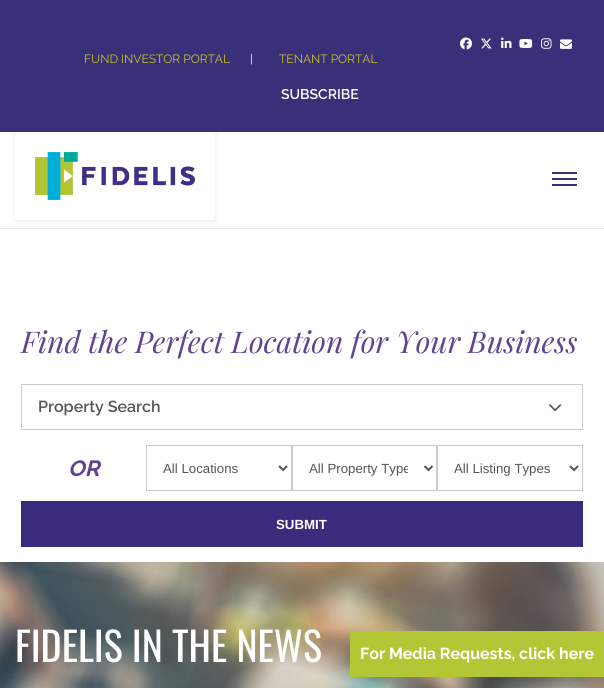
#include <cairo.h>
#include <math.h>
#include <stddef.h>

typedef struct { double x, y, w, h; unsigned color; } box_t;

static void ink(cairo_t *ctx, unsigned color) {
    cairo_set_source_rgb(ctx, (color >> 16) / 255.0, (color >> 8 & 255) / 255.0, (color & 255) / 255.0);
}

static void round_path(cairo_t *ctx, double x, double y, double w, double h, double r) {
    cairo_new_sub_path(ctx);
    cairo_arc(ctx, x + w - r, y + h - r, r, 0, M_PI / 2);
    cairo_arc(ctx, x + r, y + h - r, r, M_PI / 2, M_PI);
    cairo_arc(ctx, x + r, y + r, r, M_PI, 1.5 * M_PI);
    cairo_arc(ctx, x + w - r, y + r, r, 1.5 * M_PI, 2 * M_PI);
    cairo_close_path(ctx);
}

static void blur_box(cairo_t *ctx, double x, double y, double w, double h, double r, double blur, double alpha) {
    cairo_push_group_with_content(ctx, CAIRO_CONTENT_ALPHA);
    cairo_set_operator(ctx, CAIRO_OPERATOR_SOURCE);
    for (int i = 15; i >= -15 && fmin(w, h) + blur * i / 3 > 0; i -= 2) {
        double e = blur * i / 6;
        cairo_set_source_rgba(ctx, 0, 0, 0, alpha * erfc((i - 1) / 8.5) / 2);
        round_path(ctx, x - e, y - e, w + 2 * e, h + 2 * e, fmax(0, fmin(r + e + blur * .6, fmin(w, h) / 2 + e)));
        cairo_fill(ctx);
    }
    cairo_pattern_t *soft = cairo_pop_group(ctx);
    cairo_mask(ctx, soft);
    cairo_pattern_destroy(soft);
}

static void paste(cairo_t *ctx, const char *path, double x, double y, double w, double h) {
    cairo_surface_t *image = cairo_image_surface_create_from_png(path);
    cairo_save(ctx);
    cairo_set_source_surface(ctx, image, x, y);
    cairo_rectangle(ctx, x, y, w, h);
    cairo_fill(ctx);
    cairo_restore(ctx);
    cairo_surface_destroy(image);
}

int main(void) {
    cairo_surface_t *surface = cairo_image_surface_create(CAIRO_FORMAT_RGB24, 604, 688);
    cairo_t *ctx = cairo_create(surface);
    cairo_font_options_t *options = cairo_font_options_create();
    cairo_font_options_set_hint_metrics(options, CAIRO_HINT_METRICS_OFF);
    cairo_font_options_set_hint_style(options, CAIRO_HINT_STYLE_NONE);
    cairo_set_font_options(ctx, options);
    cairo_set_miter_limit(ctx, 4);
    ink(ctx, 0xFFFFFF);
    cairo_paint(ctx);
    ink(ctx, 0x3A2F79);
    cairo_rectangle(ctx, 0, 0, 604, 132);
    cairo_fill(ctx);
    paste(ctx, "media/1.png", 460, 37, 12, 13);
    paste(ctx, "media/2.png", 481, 38, 11, 11);
    paste(ctx, "media/3.png", 501, 37, 11, 11);
    paste(ctx, "media/4.png", 519, 39, 14, 9);
    paste(ctx, "media/5.png", 541, 38, 11, 11);
    paste(ctx, "media/6.png", 560, 39, 12, 10);
    cairo_select_font_face(ctx, "Raleway", CAIRO_FONT_SLANT_NORMAL, CAIRO_FONT_WEIGHT_NORMAL);
    cairo_set_font_size(ctx, 12);
    ink(ctx, 0xC6C327);
    cairo_move_to(ctx, 84, 63);
    cairo_show_text(ctx, "FUND INVESTOR PORTAL");
    ink(ctx, 0xFFFFFF);
    cairo_move_to(ctx, 250, 63);
    cairo_show_text(ctx, "|");
    ink(ctx, 0xC6C327);
    cairo_move_to(ctx, 279, 63);
    cairo_show_text(ctx, "TENANT PORTAL");
    cairo_select_font_face(ctx, "Raleway SemiBold", CAIRO_FONT_SLANT_NORMAL, CAIRO_FONT_WEIGHT_NORMAL);
    cairo_set_font_size(ctx, 14);
    ink(ctx, 0xFFFFFF);
    cairo_move_to(ctx, 281, 99);
    cairo_show_text(ctx, "SUBSCRIBE");
    ink(ctx, 0xE8E8E8);
    cairo_rectangle(ctx, 0, 228, 604, 1);
    cairo_fill(ctx);
    cairo_save(ctx);
    cairo_set_fill_rule(ctx, CAIRO_FILL_RULE_EVEN_ODD);
    cairo_new_path(ctx);
    cairo_move_to(ctx, 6, 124);
    cairo_line_to(ctx, 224, 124);
    cairo_line_to(ctx, 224, 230);
    cairo_line_to(ctx, 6, 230);
    cairo_close_path(ctx);
    cairo_move_to(ctx, 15, 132);
    cairo_line_to(ctx, 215, 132);
    cairo_line_to(ctx, 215, 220);
    cairo_line_to(ctx, 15, 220);
    cairo_close_path(ctx);
    cairo_clip(ctx);
    ink(ctx, 0x000000);
    blur_box(ctx, 15, 133, 200, 88, 0, 2.5, 0.1);
    cairo_restore(ctx);
    paste(ctx, "media/7.png", 35, 152, 160, 48);
    {
        static const box_t items[] = {
            {552, 178, 25, 2, 0x3A2F79},
            {552, 172, 25, 2, 0x3A2F79},
            {552, 184, 25, 2, 0x3A2F79},
        };
        for (size_t i = 0; i < sizeof items / sizeof *items; i++) {
            ink(ctx, items[i].color);
            cairo_rectangle(ctx, items[i].x, items[i].y, items[i].w, items[i].h);
            cairo_fill(ctx);
        }
    }
    cairo_select_font_face(ctx, "Playfair Display", CAIRO_FONT_SLANT_ITALIC, CAIRO_FONT_WEIGHT_NORMAL);
    cairo_set_font_size(ctx, 30);
    ink(ctx, 0x614491);
    cairo_move_to(ctx, 21, 353);
    cairo_show_text(ctx, "Find the Perfect Location for Your Business");
    cairo_rectangle(ctx, 21.5, 384.5, 561, 45);
    ink(ctx, 0xCDCDCD);
    cairo_set_line_width(ctx, 1);
    cairo_stroke(ctx);
    cairo_select_font_face(ctx, "Raleway SemiBold", CAIRO_FONT_SLANT_NORMAL, CAIRO_FONT_WEIGHT_NORMAL);
    cairo_set_font_size(ctx, 16);
    ink(ctx, 0x555555);
    cairo_move_to(ctx, 38, 412);
    cairo_show_text(ctx, "Property Search");
    paste(ctx, "media/8.png", 549, 404, 13, 8);
    cairo_select_font_face(ctx, "Raleway", CAIRO_FONT_SLANT_ITALIC, CAIRO_FONT_WEIGHT_BOLD);
    cairo_set_font_size(ctx, 22);
    ink(ctx, 0x614491);
    cairo_move_to(ctx, 68, 476);
    cairo_show_text(ctx, "OR");
    cairo_rectangle(ctx, 146.5, 445.5, 145, 45);
    ink(ctx, 0xCCCCCC);
    cairo_stroke(ctx);
    cairo_new_path(ctx);
    cairo_move_to(ctx, 279, 466);
    cairo_line_to(ctx, 283, 470);
    cairo_line_to(ctx, 287, 466);
    ink(ctx, 0x555555);
    cairo_set_line_width(ctx, 2);
    cairo_stroke(ctx);
    cairo_select_font_face(ctx, "Liberation Sans", CAIRO_FONT_SLANT_NORMAL, CAIRO_FONT_WEIGHT_NORMAL);
    cairo_set_font_size(ctx, 13.25);
    cairo_move_to(ctx, 163, 473);
    cairo_show_text(ctx, "All Locations");
    cairo_rectangle(ctx, 292.5, 445.5, 144, 45);
    ink(ctx, 0xCCCCCC);
    cairo_set_line_width(ctx, 1);
    cairo_stroke(ctx);
    cairo_new_path(ctx);
    cairo_move_to(ctx, 424.5, 466);
    cairo_line_to(ctx, 428.5, 470);
    cairo_line_to(ctx, 432.5, 466);
    ink(ctx, 0x555555);
    cairo_set_line_width(ctx, 2);
    cairo_stroke(ctx);
    cairo_save(ctx);
    cairo_rectangle(ctx, 309, 460, 99, 17);
    cairo_clip(ctx);
    cairo_move_to(ctx, 309, 473);
    cairo_show_text(ctx, "All Property Type");
    cairo_restore(ctx);
    cairo_rectangle(ctx, 437.5, 445.5, 145, 45);
    ink(ctx, 0xCCCCCC);
    cairo_set_line_width(ctx, 1);
    cairo_stroke(ctx);
    cairo_new_path(ctx);
    cairo_move_to(ctx, 570, 466);
    cairo_line_to(ctx, 574, 470);
    cairo_line_to(ctx, 578, 466);
    ink(ctx, 0x555555);
    cairo_set_line_width(ctx, 2);
    cairo_stroke(ctx);
    cairo_move_to(ctx, 454, 473);
    cairo_show_text(ctx, "All Listing Types");
    ink(ctx, 0x3B2B7C);
    cairo_rectangle(ctx, 21, 501, 562, 46);
    cairo_fill(ctx);
    cairo_select_font_face(ctx, "Liberation Sans", CAIRO_FONT_SLANT_NORMAL, CAIRO_FONT_WEIGHT_BOLD);
    ink(ctx, 0xFFFFFF);
    cairo_move_to(ctx, 276, 529);
    cairo_show_text(ctx, "SUBMIT");
    paste(ctx, "media/9.png", 0, 562, 604, 126);
    cairo_select_font_face(ctx, "Oswald", CAIRO_FONT_SLANT_NORMAL, CAIRO_FONT_WEIGHT_NORMAL);
    cairo_set_font_size(ctx, 40);
    cairo_move_to(ctx, 15, 662);
    cairo_show_text(ctx, "FIDELIS IN THE NEWS");
    ink(ctx, 0xB3C635);
    cairo_rectangle(ctx, 350, 631, 254, 46);
    cairo_fill(ctx);
    cairo_select_font_face(ctx, "Raleway", CAIRO_FONT_SLANT_NORMAL, CAIRO_FONT_WEIGHT_BOLD);
    cairo_set_font_size(ctx, 16);
    ink(ctx, 0xFFFFFF);
    cairo_move_to(ctx, 360, 659);
    cairo_show_text(ctx, "For Media Requests, click here");
    cairo_surface_write_to_png(surface, "image.png");
    cairo_font_options_destroy(options);
    cairo_destroy(ctx);
    cairo_surface_destroy(surface);
    return 0;
}
